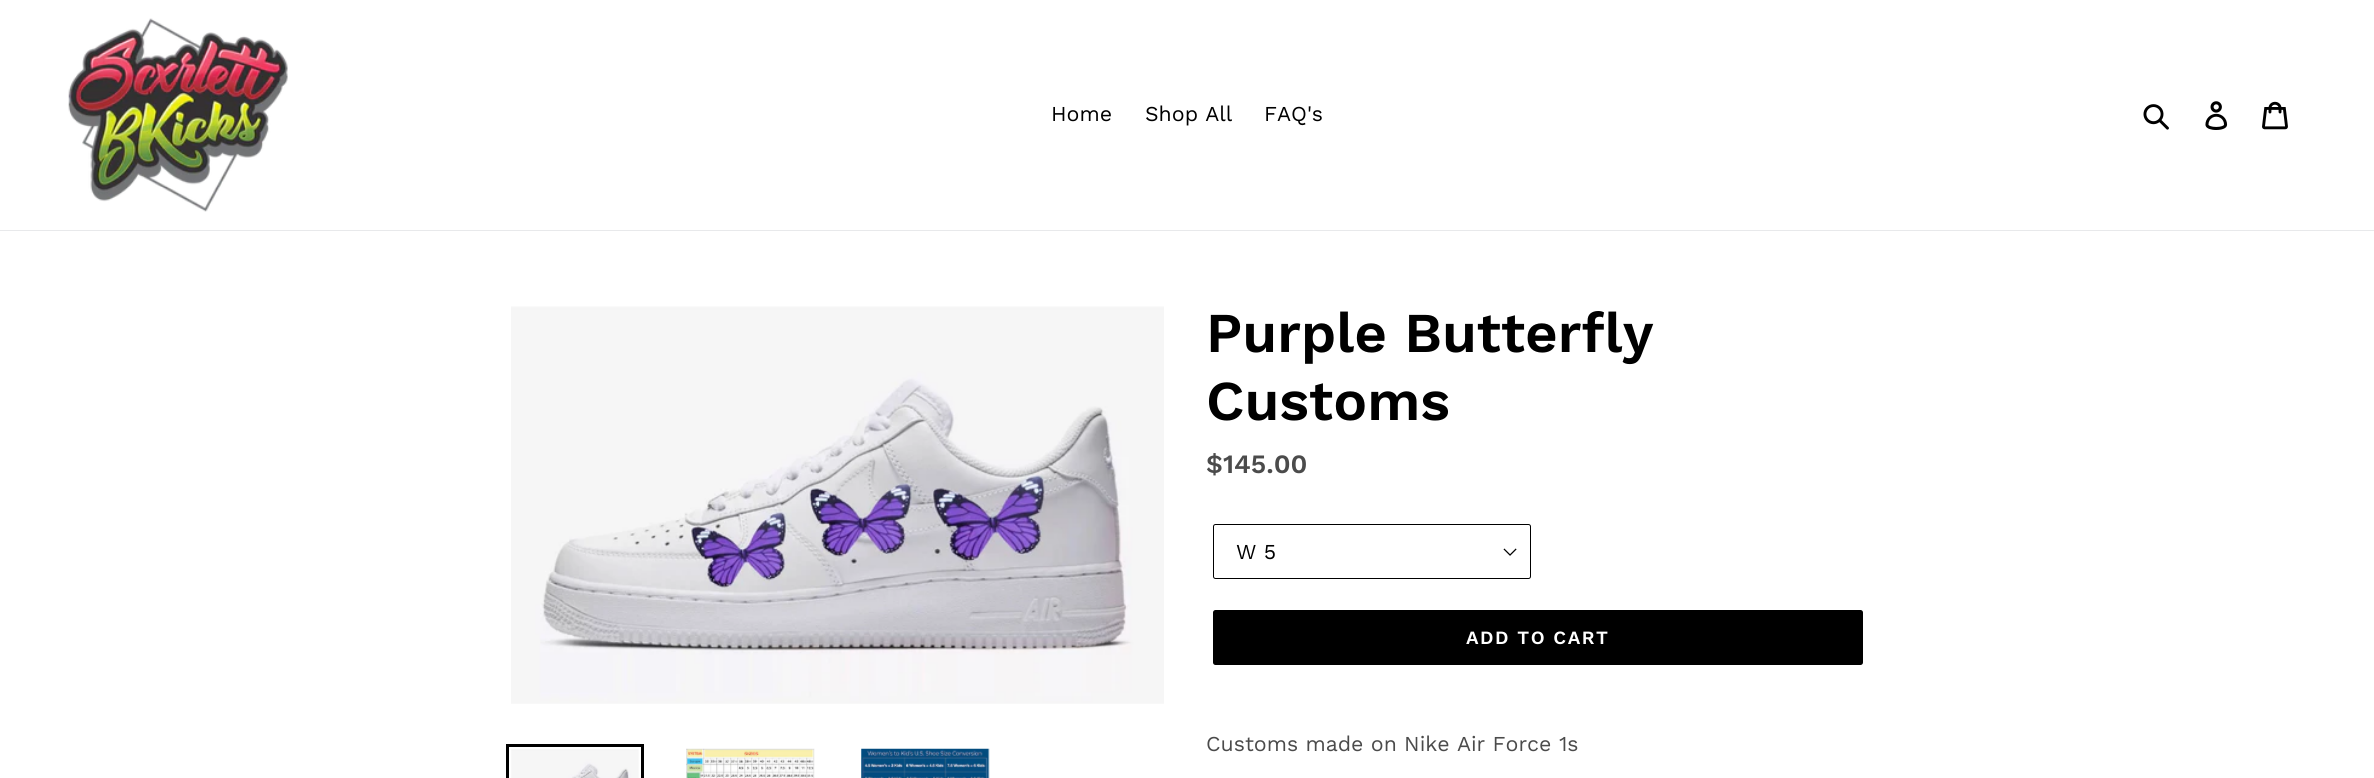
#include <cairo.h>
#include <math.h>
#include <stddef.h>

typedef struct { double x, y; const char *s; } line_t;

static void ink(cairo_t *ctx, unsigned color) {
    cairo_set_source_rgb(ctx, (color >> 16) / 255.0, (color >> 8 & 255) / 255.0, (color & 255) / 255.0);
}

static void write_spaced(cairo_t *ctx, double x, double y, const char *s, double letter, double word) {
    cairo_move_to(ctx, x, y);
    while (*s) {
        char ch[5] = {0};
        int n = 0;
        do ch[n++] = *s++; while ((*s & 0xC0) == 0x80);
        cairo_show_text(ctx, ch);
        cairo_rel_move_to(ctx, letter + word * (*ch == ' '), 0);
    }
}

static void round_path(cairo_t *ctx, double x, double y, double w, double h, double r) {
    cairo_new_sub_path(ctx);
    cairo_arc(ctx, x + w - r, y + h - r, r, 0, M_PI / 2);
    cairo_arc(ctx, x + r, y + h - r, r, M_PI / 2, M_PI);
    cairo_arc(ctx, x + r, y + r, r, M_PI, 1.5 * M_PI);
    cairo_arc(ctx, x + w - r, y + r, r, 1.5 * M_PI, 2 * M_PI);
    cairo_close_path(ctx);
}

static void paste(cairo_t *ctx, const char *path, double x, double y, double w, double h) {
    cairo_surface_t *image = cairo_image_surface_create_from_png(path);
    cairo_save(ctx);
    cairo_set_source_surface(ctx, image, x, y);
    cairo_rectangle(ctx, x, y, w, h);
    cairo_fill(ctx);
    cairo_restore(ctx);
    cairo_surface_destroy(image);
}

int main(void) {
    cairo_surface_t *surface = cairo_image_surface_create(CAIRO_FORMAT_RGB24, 2374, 778);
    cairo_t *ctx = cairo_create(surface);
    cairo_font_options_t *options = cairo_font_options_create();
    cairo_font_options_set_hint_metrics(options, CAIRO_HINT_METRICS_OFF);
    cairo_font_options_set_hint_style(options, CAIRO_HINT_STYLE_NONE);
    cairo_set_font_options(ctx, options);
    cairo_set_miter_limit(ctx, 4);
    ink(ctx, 0xFFFFFF);
    cairo_paint(ctx);
    ink(ctx, 0xE8E9EB);
    cairo_rectangle(ctx, 0, 230, 2374, 1);
    cairo_fill(ctx);
    paste(ctx, "media/1.png", 68, 18, 220, 194);
    cairo_select_font_face(ctx, "Work Sans", CAIRO_FONT_SLANT_NORMAL, CAIRO_FONT_WEIGHT_NORMAL);
    cairo_set_font_size(ctx, 21.25);
    ink(ctx, 0x000000);
    {
        static const line_t items[] = {
            {1051, 121, "Home"},
            {1145, 121, "Shop All"},
            {1264, 121, "FAQ's"},
        };
        for (size_t i = 0; i < sizeof items / sizeof *items; i++) {
            cairo_move_to(ctx, items[i].x, items[i].y);
            cairo_show_text(ctx, items[i].s);
        }
    }
    paste(ctx, "media/2.png", 2143, 104, 26, 26);
    paste(ctx, "media/3.png", 2205, 101, 23, 29);
    paste(ctx, "media/4.png", 2262, 101, 26, 29);
    paste(ctx, "media/5.png", 511, 306, 653, 398);
    cairo_rectangle(ctx, 507.5, 745.5, 135, 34);
    cairo_set_line_width(ctx, 3);
    cairo_stroke(ctx);
    paste(ctx, "media/6.png", 511, 749, 128, 29);
    paste(ctx, "media/7.png", 686, 748, 129, 30);
    paste(ctx, "media/8.png", 861, 748, 129, 30);
    cairo_select_font_face(ctx, "Work Sans SemiBold", CAIRO_FONT_SLANT_NORMAL, CAIRO_FONT_WEIGHT_NORMAL);
    cairo_set_font_size(ctx, 56.25);
    cairo_move_to(ctx, 1206, 352);
    cairo_show_text(ctx, "Purple Butterfly");
    cairo_move_to(ctx, 1206, 420);
    cairo_show_text(ctx, "Customs");
    cairo_set_font_size(ctx, 26.5);
    ink(ctx, 0x4B4B4B);
    cairo_move_to(ctx, 1206, 473);
    cairo_show_text(ctx, "$145.00");
    paste(ctx, "media/9.png", 1503, 548, 14, 8);
    round_path(ctx, 1213.5, 524.5, 317, 54, 2);
    ink(ctx, 0x000000);
    cairo_set_line_width(ctx, 1);
    cairo_stroke(ctx);
    cairo_select_font_face(ctx, "Work Sans", CAIRO_FONT_SLANT_NORMAL, CAIRO_FONT_WEIGHT_NORMAL);
    cairo_set_font_size(ctx, 21.25);
    cairo_move_to(ctx, 1236, 559);
    cairo_show_text(ctx, "W 5");
    round_path(ctx, 1213, 610, 650, 55, 2.5);
    cairo_fill(ctx);
    cairo_select_font_face(ctx, "Work Sans SemiBold", CAIRO_FONT_SLANT_NORMAL, CAIRO_FONT_WEIGHT_NORMAL);
    cairo_set_font_size(ctx, 18.75);
    ink(ctx, 0xFFFFFF);
    write_spaced(ctx, 1466, 644, "ADD TO CART", 1.5, 0);
    cairo_select_font_face(ctx, "Work Sans", CAIRO_FONT_SLANT_NORMAL, CAIRO_FONT_WEIGHT_NORMAL);
    cairo_set_font_size(ctx, 21.25);
    ink(ctx, 0x4B4B4B);
    cairo_move_to(ctx, 1206, 751);
    cairo_show_text(ctx, "Customs made on Nike Air Force 1s");
    cairo_surface_write_to_png(surface, "image.png");
    cairo_font_options_destroy(options);
    cairo_destroy(ctx);
    cairo_surface_destroy(surface);
    return 0;
}
